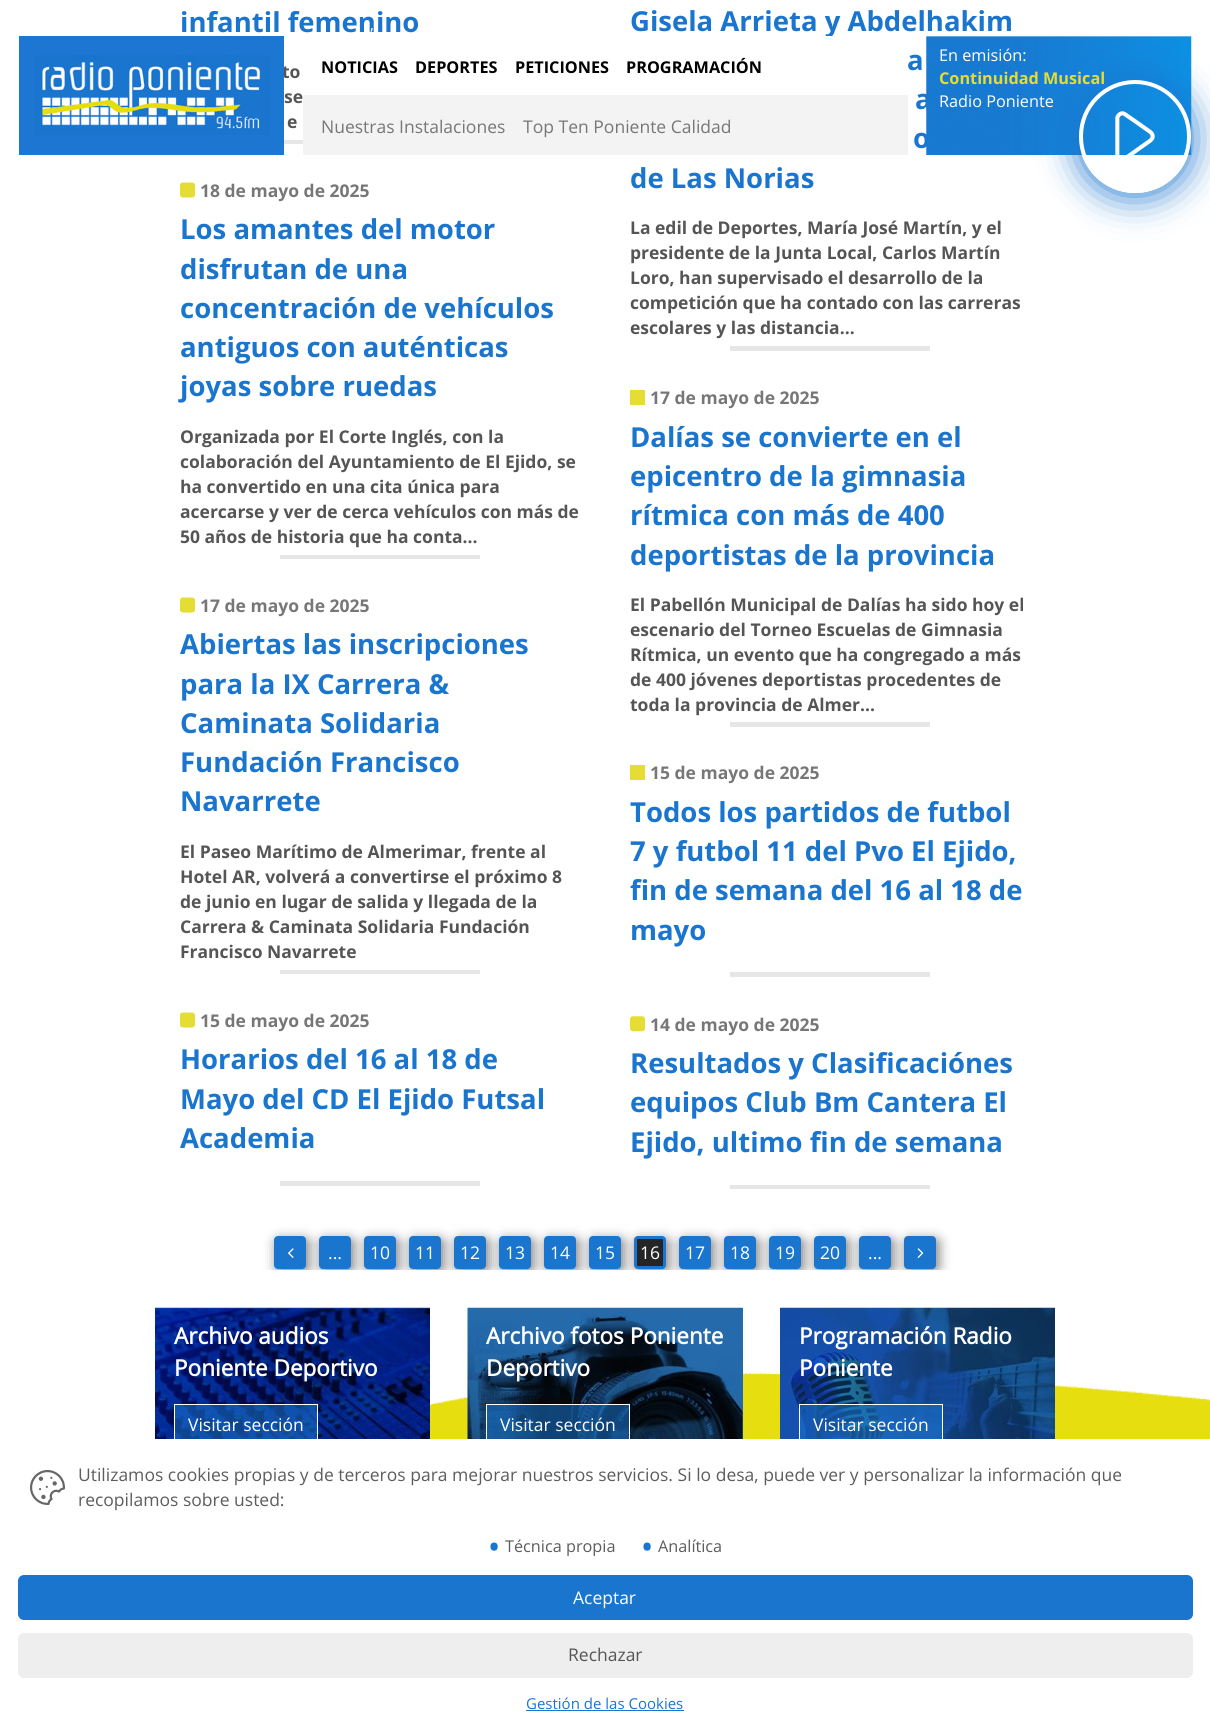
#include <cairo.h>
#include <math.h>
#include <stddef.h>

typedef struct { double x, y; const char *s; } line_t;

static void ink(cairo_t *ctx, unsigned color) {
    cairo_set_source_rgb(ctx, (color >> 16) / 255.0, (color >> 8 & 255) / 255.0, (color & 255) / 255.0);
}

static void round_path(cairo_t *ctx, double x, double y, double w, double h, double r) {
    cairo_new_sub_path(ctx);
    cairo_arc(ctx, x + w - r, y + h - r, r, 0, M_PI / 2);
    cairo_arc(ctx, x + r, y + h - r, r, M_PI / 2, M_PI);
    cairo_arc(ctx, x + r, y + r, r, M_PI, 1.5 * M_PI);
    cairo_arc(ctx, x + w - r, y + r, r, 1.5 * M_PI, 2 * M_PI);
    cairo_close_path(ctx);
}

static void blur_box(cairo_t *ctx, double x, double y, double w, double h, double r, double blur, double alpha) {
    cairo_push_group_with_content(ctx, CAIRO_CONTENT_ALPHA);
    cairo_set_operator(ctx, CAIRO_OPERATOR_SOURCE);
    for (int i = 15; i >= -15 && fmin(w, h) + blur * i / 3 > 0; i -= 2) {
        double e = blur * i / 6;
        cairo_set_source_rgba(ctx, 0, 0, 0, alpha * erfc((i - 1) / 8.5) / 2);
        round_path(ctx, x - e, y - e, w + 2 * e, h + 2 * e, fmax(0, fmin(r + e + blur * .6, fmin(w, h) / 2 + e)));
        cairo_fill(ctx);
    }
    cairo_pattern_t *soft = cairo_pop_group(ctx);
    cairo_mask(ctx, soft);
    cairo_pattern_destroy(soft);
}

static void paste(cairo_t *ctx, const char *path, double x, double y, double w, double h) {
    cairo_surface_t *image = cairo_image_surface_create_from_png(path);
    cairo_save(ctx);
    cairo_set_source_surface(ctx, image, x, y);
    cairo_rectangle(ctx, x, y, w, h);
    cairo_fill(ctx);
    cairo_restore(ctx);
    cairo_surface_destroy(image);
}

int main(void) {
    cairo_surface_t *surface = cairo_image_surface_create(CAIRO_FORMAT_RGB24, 1210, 1732);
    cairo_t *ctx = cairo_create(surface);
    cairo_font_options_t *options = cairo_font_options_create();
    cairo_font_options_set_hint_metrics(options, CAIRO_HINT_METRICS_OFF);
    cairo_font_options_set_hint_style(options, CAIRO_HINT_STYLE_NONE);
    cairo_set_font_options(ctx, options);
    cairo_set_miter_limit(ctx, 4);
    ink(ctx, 0xFFFFFF);
    cairo_paint(ctx);
    ink(ctx, 0xE6E6E6);
    cairo_rectangle(ctx, 280, 140, 23, 4);
    cairo_fill(ctx);
    cairo_select_font_face(ctx, "Open Sans", CAIRO_FONT_SLANT_NORMAL, CAIRO_FONT_WEIGHT_BOLD);
    cairo_set_font_size(ctx, 27.5);
    ink(ctx, 0x1A75CE);
    cairo_move_to(ctx, 180, 32);
    cairo_show_text(ctx, "infantil femenino");
    cairo_set_font_size(ctx, 17.5);
    ink(ctx, 0x555555);
    {
        static const line_t items[] = {
            {282, 78, "to"},
            {284, 103, "se"},
            {287, 128, "e"},
        };
        for (size_t i = 0; i < sizeof items / sizeof *items; i++) {
            cairo_move_to(ctx, items[i].x, items[i].y);
            cairo_show_text(ctx, items[i].s);
        }
    }
    ink(ctx, 0xE6E6E6);
    cairo_rectangle(ctx, 730, 346, 200, 5);
    cairo_fill(ctx);
    cairo_set_font_size(ctx, 27.5);
    ink(ctx, 0x1A75CE);
    {
        static const line_t items[] = {
            {630, 31, "Gisela Arrieta y Abdelhakim"},
            {907, 70, "a"},
            {915, 109, "a"},
            {913, 148, "o"},
            {630, 188, "de Las Norias"},
        };
        for (size_t i = 0; i < sizeof items / sizeof *items; i++) {
            cairo_move_to(ctx, items[i].x, items[i].y);
            cairo_show_text(ctx, items[i].s);
        }
    }
    cairo_set_font_size(ctx, 17.5);
    ink(ctx, 0x555555);
    {
        static const line_t items[] = {
            {630, 234, "La edil de Deportes, María José Martín, y el"},
            {630, 259, "presidente de la Junta Local, Carlos Martín"},
            {630, 284, "Loro, han supervisado el desarrollo de la"},
            {630, 309, "competición que ha contado con las carreras"},
            {630, 334, "escolares y las distancia..."},
        };
        for (size_t i = 0; i < sizeof items / sizeof *items; i++) {
            cairo_move_to(ctx, items[i].x, items[i].y);
            cairo_show_text(ctx, items[i].s);
        }
    }
    ink(ctx, 0xE6E6E6);
    cairo_rectangle(ctx, 280, 555, 200, 4);
    cairo_fill(ctx);
    paste(ctx, "media/1.png", 180, 182, 15, 16);
    ink(ctx, 0x777777);
    cairo_move_to(ctx, 200, 197);
    cairo_show_text(ctx, "18 de mayo de 2025");
    cairo_set_font_size(ctx, 27.5);
    ink(ctx, 0x1A75CE);
    {
        static const line_t items[] = {
            {180, 239, "Los amantes del motor"},
            {180, 279, "disfrutan de una"},
            {180, 318, "concentración de vehículos"},
            {180, 357, "antiguos con auténticas"},
            {180, 396, "joyas sobre ruedas"},
        };
        for (size_t i = 0; i < sizeof items / sizeof *items; i++) {
            cairo_move_to(ctx, items[i].x, items[i].y);
            cairo_show_text(ctx, items[i].s);
        }
    }
    cairo_set_font_size(ctx, 17.5);
    ink(ctx, 0x555555);
    {
        static const line_t items[] = {
            {180, 443, "Organizada por El Corte Inglés, con la"},
            {180, 468, "colaboración del Ayuntamiento de El Ejido, se"},
            {180, 493, "ha convertido en una cita única para"},
            {180, 518, "acercarse y ver de cerca vehículos con más de"},
            {180, 543, "50 años de historia que ha conta..."},
        };
        for (size_t i = 0; i < sizeof items / sizeof *items; i++) {
            cairo_move_to(ctx, items[i].x, items[i].y);
            cairo_show_text(ctx, items[i].s);
        }
    }
    ink(ctx, 0xE6E6E6);
    cairo_rectangle(ctx, 730, 722, 200, 5);
    cairo_fill(ctx);
    ink(ctx, 0xE5DC34);
    cairo_rectangle(ctx, 630, 390, 15, 15);
    cairo_fill(ctx);
    ink(ctx, 0x777777);
    cairo_move_to(ctx, 650, 404);
    cairo_show_text(ctx, "17 de mayo de 2025");
    cairo_set_font_size(ctx, 27.5);
    ink(ctx, 0x1A75CE);
    {
        static const line_t items[] = {
            {630, 447, "Dalías se convierte en el"},
            {630, 486, "epicentro de la gimnasia"},
            {630, 525, "rítmica con más de 400"},
            {630, 565, "deportistas de la provincia"},
        };
        for (size_t i = 0; i < sizeof items / sizeof *items; i++) {
            cairo_move_to(ctx, items[i].x, items[i].y);
            cairo_show_text(ctx, items[i].s);
        }
    }
    cairo_set_font_size(ctx, 17.5);
    ink(ctx, 0x555555);
    {
        static const line_t items[] = {
            {630, 611, "El Pabellón Municipal de Dalías ha sido hoy el"},
            {630, 636, "escenario del Torneo Escuelas de Gimnasia"},
            {630, 661, "Rítmica, un evento que ha congregado a más"},
            {630, 686, "de 400 jóvenes deportistas procedentes de"},
            {630, 711, "toda la provincia de Almer..."},
        };
        for (size_t i = 0; i < sizeof items / sizeof *items; i++) {
            cairo_move_to(ctx, items[i].x, items[i].y);
            cairo_show_text(ctx, items[i].s);
        }
    }
    ink(ctx, 0xE6E6E6);
    cairo_rectangle(ctx, 280, 970, 200, 4);
    cairo_fill(ctx);
    paste(ctx, "media/1.png", 180, 597, 15, 16);
    ink(ctx, 0x777777);
    cairo_move_to(ctx, 200, 612);
    cairo_show_text(ctx, "17 de mayo de 2025");
    cairo_set_font_size(ctx, 27.5);
    ink(ctx, 0x1A75CE);
    {
        static const line_t items[] = {
            {180, 654, "Abiertas las inscripciones"},
            {180, 694, "para la IX Carrera &"},
            {180, 733, "Caminata Solidaria"},
            {180, 772, "Fundación Francisco"},
            {180, 811, "Navarrete"},
        };
        for (size_t i = 0; i < sizeof items / sizeof *items; i++) {
            cairo_move_to(ctx, items[i].x, items[i].y);
            cairo_show_text(ctx, items[i].s);
        }
    }
    cairo_set_font_size(ctx, 17.5);
    ink(ctx, 0x555555);
    {
        static const line_t items[] = {
            {180, 858, "El Paseo Marítimo de Almerimar, frente al"},
            {180, 883, "Hotel AR, volverá a convertirse el próximo 8"},
            {180, 908, "de junio en lugar de salida y llegada de la"},
            {180, 933, "Carrera & Caminata Solidaria Fundación"},
            {180, 958, "Francisco Navarrete"},
        };
        for (size_t i = 0; i < sizeof items / sizeof *items; i++) {
            cairo_move_to(ctx, items[i].x, items[i].y);
            cairo_show_text(ctx, items[i].s);
        }
    }
    ink(ctx, 0xE6E6E6);
    cairo_rectangle(ctx, 730, 972, 200, 5);
    cairo_fill(ctx);
    ink(ctx, 0xE5DC34);
    cairo_rectangle(ctx, 630, 765, 15, 15);
    cairo_fill(ctx);
    ink(ctx, 0x777777);
    cairo_move_to(ctx, 650, 779);
    cairo_show_text(ctx, "15 de mayo de 2025");
    cairo_set_font_size(ctx, 27.5);
    ink(ctx, 0x1A75CE);
    {
        static const line_t items[] = {
            {630, 822, "Todos los partidos de futbol"},
            {630, 861, "7 y futbol 11 del Pvo El Ejido,"},
            {630, 900, "fin de semana del 16 al 18 de"},
            {630, 940, "mayo"},
        };
        for (size_t i = 0; i < sizeof items / sizeof *items; i++) {
            cairo_move_to(ctx, items[i].x, items[i].y);
            cairo_show_text(ctx, items[i].s);
        }
    }
    ink(ctx, 0xE6E6E6);
    cairo_rectangle(ctx, 280, 1181, 200, 5);
    cairo_fill(ctx);
    paste(ctx, "media/1.png", 180, 1012, 15, 16);
    cairo_set_font_size(ctx, 17.5);
    ink(ctx, 0x777777);
    cairo_move_to(ctx, 200, 1027);
    cairo_show_text(ctx, "15 de mayo de 2025");
    cairo_set_font_size(ctx, 27.5);
    ink(ctx, 0x1A75CE);
    {
        static const line_t items[] = {
            {180, 1069, "Horarios del 16 al 18 de"},
            {180, 1109, "Mayo del CD El Ejido Futsal"},
            {180, 1148, "Academia"},
        };
        for (size_t i = 0; i < sizeof items / sizeof *items; i++) {
            cairo_move_to(ctx, items[i].x, items[i].y);
            cairo_show_text(ctx, items[i].s);
        }
    }
    ink(ctx, 0xE6E6E6);
    cairo_rectangle(ctx, 730, 1185, 200, 4);
    cairo_fill(ctx);
    paste(ctx, "media/2.png", 630, 1016, 15, 16);
    cairo_set_font_size(ctx, 17.5);
    ink(ctx, 0x777777);
    cairo_move_to(ctx, 650, 1031);
    cairo_show_text(ctx, "14 de mayo de 2025");
    cairo_set_font_size(ctx, 27.5);
    ink(ctx, 0x1A75CE);
    {
        static const line_t items[] = {
            {630, 1073, "Resultados y Clasificaciónes"},
            {630, 1112, "equipos Club Bm Cantera El"},
            {630, 1152, "Ejido, ultimo fin de semana"},
        };
        for (size_t i = 0; i < sizeof items / sizeof *items; i++) {
            cairo_move_to(ctx, items[i].x, items[i].y);
            cairo_show_text(ctx, items[i].s);
        }
    }
    cairo_save(ctx);
    cairo_rectangle(ctx, 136, 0, 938, 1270);
    cairo_clip(ctx);
    ink(ctx, 0x000000);
    blur_box(ctx, 276, 1239, 33, 32, 4, 6, 0.5);
    cairo_restore(ctx);
    round_path(ctx, 275.5, 1237.5, 29, 30, 2.5);
    cairo_fill_preserve(ctx);
    cairo_set_line_width(ctx, 3);
    cairo_stroke(ctx);
    paste(ctx, "media/3.png", 288, 1248, 6, 10);
    cairo_save(ctx);
    cairo_rectangle(ctx, 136, 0, 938, 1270);
    cairo_clip(ctx);
    ink(ctx, 0x000000);
    blur_box(ctx, 321, 1239, 33, 32, 4, 6, 0.5);
    cairo_restore(ctx);
    round_path(ctx, 320.5, 1237.5, 29, 30, 2.5);
    cairo_fill_preserve(ctx);
    cairo_stroke(ctx);
    cairo_select_font_face(ctx, "Open Sans", CAIRO_FONT_SLANT_NORMAL, CAIRO_FONT_WEIGHT_NORMAL);
    cairo_set_font_size(ctx, 17.5);
    ink(ctx, 0xFFFFFF);
    cairo_move_to(ctx, 328, 1259);
    cairo_show_text(ctx, "...");
    cairo_save(ctx);
    cairo_rectangle(ctx, 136, 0, 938, 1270);
    cairo_clip(ctx);
    ink(ctx, 0x000000);
    blur_box(ctx, 366, 1239, 33, 32, 4, 6, 0.5);
    cairo_restore(ctx);
    ink(ctx, 0x1A75CE);
    round_path(ctx, 365.5, 1237.5, 29, 30, 2.5);
    cairo_fill_preserve(ctx);
    cairo_stroke(ctx);
    ink(ctx, 0xFFFFFF);
    cairo_move_to(ctx, 370, 1259);
    cairo_show_text(ctx, "10");
    cairo_save(ctx);
    cairo_rectangle(ctx, 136, 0, 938, 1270);
    cairo_clip(ctx);
    ink(ctx, 0x000000);
    blur_box(ctx, 411, 1239, 33, 32, 4, 6, 0.5);
    cairo_restore(ctx);
    ink(ctx, 0x1A75CE);
    round_path(ctx, 410.5, 1237.5, 29, 30, 2.5);
    cairo_fill_preserve(ctx);
    cairo_stroke(ctx);
    ink(ctx, 0xFFFFFF);
    cairo_move_to(ctx, 415, 1259);
    cairo_show_text(ctx, "11");
    cairo_save(ctx);
    cairo_rectangle(ctx, 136, 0, 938, 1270);
    cairo_clip(ctx);
    ink(ctx, 0x000000);
    blur_box(ctx, 456, 1239, 33, 32, 4, 6, 0.5);
    cairo_restore(ctx);
    ink(ctx, 0x1A75CE);
    round_path(ctx, 455.5, 1237.5, 29, 30, 2.5);
    cairo_fill_preserve(ctx);
    cairo_stroke(ctx);
    ink(ctx, 0xFFFFFF);
    cairo_move_to(ctx, 460, 1259);
    cairo_show_text(ctx, "12");
    cairo_save(ctx);
    cairo_rectangle(ctx, 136, 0, 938, 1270);
    cairo_clip(ctx);
    ink(ctx, 0x000000);
    blur_box(ctx, 501, 1239, 33, 32, 4, 6, 0.5);
    cairo_restore(ctx);
    ink(ctx, 0x1A75CE);
    round_path(ctx, 500.5, 1237.5, 29, 30, 2.5);
    cairo_fill_preserve(ctx);
    cairo_stroke(ctx);
    ink(ctx, 0xFFFFFF);
    cairo_move_to(ctx, 505, 1259);
    cairo_show_text(ctx, "13");
    cairo_save(ctx);
    cairo_rectangle(ctx, 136, 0, 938, 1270);
    cairo_clip(ctx);
    ink(ctx, 0x000000);
    blur_box(ctx, 546, 1239, 33, 32, 4, 6, 0.5);
    cairo_restore(ctx);
    ink(ctx, 0x1A75CE);
    round_path(ctx, 545.5, 1237.5, 29, 30, 2.5);
    cairo_fill_preserve(ctx);
    cairo_stroke(ctx);
    ink(ctx, 0xFFFFFF);
    cairo_move_to(ctx, 550, 1259);
    cairo_show_text(ctx, "14");
    cairo_save(ctx);
    cairo_rectangle(ctx, 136, 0, 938, 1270);
    cairo_clip(ctx);
    ink(ctx, 0x000000);
    blur_box(ctx, 591, 1239, 33, 32, 4, 6, 0.5);
    cairo_restore(ctx);
    ink(ctx, 0x1A75CE);
    round_path(ctx, 590.5, 1237.5, 29, 30, 2.5);
    cairo_fill_preserve(ctx);
    cairo_stroke(ctx);
    ink(ctx, 0xFFFFFF);
    cairo_move_to(ctx, 595, 1259);
    cairo_show_text(ctx, "15");
    cairo_save(ctx);
    cairo_rectangle(ctx, 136, 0, 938, 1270);
    cairo_clip(ctx);
    ink(ctx, 0x000000);
    blur_box(ctx, 636, 1239, 33, 32, 4, 6, 0.5);
    cairo_restore(ctx);
    ink(ctx, 0x252525);
    round_path(ctx, 635.5, 1237.5, 29, 30, 2.5);
    cairo_fill_preserve(ctx);
    ink(ctx, 0x1A75CE);
    cairo_stroke(ctx);
    ink(ctx, 0xFFFFFF);
    cairo_move_to(ctx, 640, 1259);
    cairo_show_text(ctx, "16");
    cairo_save(ctx);
    cairo_rectangle(ctx, 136, 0, 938, 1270);
    cairo_clip(ctx);
    ink(ctx, 0x000000);
    blur_box(ctx, 681, 1239, 33, 32, 4, 6, 0.5);
    cairo_restore(ctx);
    ink(ctx, 0x1A75CE);
    round_path(ctx, 680.5, 1237.5, 29, 30, 2.5);
    cairo_fill_preserve(ctx);
    cairo_stroke(ctx);
    ink(ctx, 0xFFFFFF);
    cairo_move_to(ctx, 685, 1259);
    cairo_show_text(ctx, "17");
    cairo_save(ctx);
    cairo_rectangle(ctx, 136, 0, 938, 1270);
    cairo_clip(ctx);
    ink(ctx, 0x000000);
    blur_box(ctx, 726, 1239, 33, 32, 4, 6, 0.5);
    cairo_restore(ctx);
    ink(ctx, 0x1A75CE);
    round_path(ctx, 725.5, 1237.5, 29, 30, 2.5);
    cairo_fill_preserve(ctx);
    cairo_stroke(ctx);
    ink(ctx, 0xFFFFFF);
    cairo_move_to(ctx, 730, 1259);
    cairo_show_text(ctx, "18");
    cairo_save(ctx);
    cairo_rectangle(ctx, 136, 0, 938, 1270);
    cairo_clip(ctx);
    ink(ctx, 0x000000);
    blur_box(ctx, 771, 1239, 33, 32, 4, 6, 0.5);
    cairo_restore(ctx);
    ink(ctx, 0x1A75CE);
    round_path(ctx, 770.5, 1237.5, 29, 30, 2.5);
    cairo_fill_preserve(ctx);
    cairo_stroke(ctx);
    ink(ctx, 0xFFFFFF);
    cairo_move_to(ctx, 775, 1259);
    cairo_show_text(ctx, "19");
    cairo_save(ctx);
    cairo_rectangle(ctx, 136, 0, 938, 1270);
    cairo_clip(ctx);
    ink(ctx, 0x000000);
    blur_box(ctx, 816, 1239, 33, 32, 4, 6, 0.5);
    cairo_restore(ctx);
    ink(ctx, 0x1A75CE);
    round_path(ctx, 815.5, 1237.5, 29, 30, 2.5);
    cairo_fill_preserve(ctx);
    cairo_stroke(ctx);
    ink(ctx, 0xFFFFFF);
    cairo_move_to(ctx, 820, 1259);
    cairo_show_text(ctx, "20");
    cairo_save(ctx);
    cairo_rectangle(ctx, 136, 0, 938, 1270);
    cairo_clip(ctx);
    ink(ctx, 0x000000);
    blur_box(ctx, 861, 1239, 33, 32, 4, 6, 0.5);
    cairo_restore(ctx);
    ink(ctx, 0x1A75CE);
    round_path(ctx, 860.5, 1237.5, 29, 30, 2.5);
    cairo_fill_preserve(ctx);
    cairo_stroke(ctx);
    ink(ctx, 0xFFFFFF);
    cairo_move_to(ctx, 868, 1259);
    cairo_show_text(ctx, "...");
    cairo_save(ctx);
    cairo_rectangle(ctx, 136, 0, 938, 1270);
    cairo_clip(ctx);
    ink(ctx, 0x000000);
    blur_box(ctx, 906, 1239, 33, 32, 4, 6, 0.5);
    cairo_restore(ctx);
    ink(ctx, 0x1A75CE);
    round_path(ctx, 905.5, 1237.5, 29, 30, 2.5);
    cairo_fill_preserve(ctx);
    cairo_stroke(ctx);
    paste(ctx, "media/4.png", 917, 1248, 7, 10);
    cairo_set_font_size(ctx, 16.25);
    ink(ctx, 0xFFFFFF);
    cairo_move_to(ctx, 370, 30);
    cairo_show_text(ctx, ",");
    ink(ctx, 0x1D76D2);
    cairo_rectangle(ctx, 19, 36, 265, 119);
    cairo_fill(ctx);
    paste(ctx, "media/5.png", 35, 55, 235, 80);
    ink(ctx, 0xFFFFFF);
    cairo_rectangle(ctx, 825, 36, 7, 2);
    cairo_fill(ctx);
    cairo_select_font_face(ctx, "Open Sans", CAIRO_FONT_SLANT_NORMAL, CAIRO_FONT_WEIGHT_BOLD);
    ink(ctx, 0x000000);
    {
        static const line_t items[] = {
            {321, 73, "NOTICIAS"},
            {415, 73, "DEPORTES"},
            {515, 73, "PETICIONES"},
            {626, 73, "PROGRAMACIÓN"},
        };
        for (size_t i = 0; i < sizeof items / sizeof *items; i++) {
            cairo_move_to(ctx, items[i].x, items[i].y);
            cairo_show_text(ctx, items[i].s);
        }
    }
    ink(ctx, 0xF3F3F3);
    cairo_rectangle(ctx, 303, 95, 605, 60);
    cairo_fill(ctx);
    cairo_select_font_face(ctx, "Open Sans", CAIRO_FONT_SLANT_NORMAL, CAIRO_FONT_WEIGHT_NORMAL);
    cairo_set_font_size(ctx, 17.5);
    ink(ctx, 0x777777);
    cairo_move_to(ctx, 321, 133);
    cairo_show_text(ctx, "Nuestras Instalaciones");
    cairo_move_to(ctx, 523, 133);
    cairo_show_text(ctx, "Top Ten Poniente Calidad");
    paste(ctx, "media/7.png", 926, 36, 266, 119);
    cairo_save(ctx);
    cairo_set_fill_rule(ctx, CAIRO_FILL_RULE_EVEN_ODD);
    cairo_new_path(ctx);
    cairo_move_to(ctx, 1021, 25);
    cairo_line_to(ctx, 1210, 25);
    cairo_line_to(ctx, 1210, 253);
    cairo_line_to(ctx, 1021, 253);
    cairo_close_path(ctx);
    cairo_move_to(ctx, 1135, 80);
    cairo_curve_to(ctx, 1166, 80, 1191, 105, 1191, 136);
    cairo_line_to(ctx, 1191, 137);
    cairo_curve_to(ctx, 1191, 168, 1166, 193, 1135, 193);
    cairo_curve_to(ctx, 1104, 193, 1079, 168, 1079, 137);
    cairo_line_to(ctx, 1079, 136);
    cairo_curve_to(ctx, 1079, 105, 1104, 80, 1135, 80);
    cairo_close_path(ctx);
    cairo_clip(ctx);
    ink(ctx, 0x1A75CE);
    blur_box(ctx, 1079, 83, 112, 112, 56, 19, 1);
    cairo_restore(ctx);
    cairo_select_font_face(ctx, "Open Sans", CAIRO_FONT_SLANT_NORMAL, CAIRO_FONT_WEIGHT_BOLD);
    cairo_set_font_size(ctx, 16.25);
    ink(ctx, 0xE6DC33);
    cairo_move_to(ctx, 939, 84);
    cairo_show_text(ctx, "Continuidad Musical");
    round_path(ctx, 1081, 82, 108, 109, 54);
    ink(ctx, 0xFFFFFF);
    cairo_set_line_width(ctx, 4);
    cairo_stroke(ctx);
    paste(ctx, "media/6.png", 1115, 111, 40, 44);
    cairo_select_font_face(ctx, "Open Sans", CAIRO_FONT_SLANT_NORMAL, CAIRO_FONT_WEIGHT_NORMAL);
    cairo_move_to(ctx, 939, 61);
    cairo_show_text(ctx, "En emisión:");
    cairo_move_to(ctx, 939, 107);
    cairo_show_text(ctx, "Radio Poniente");
    paste(ctx, "media/8.png", 0, 1372, 1210, 67);
    paste(ctx, "media/9.png", 155, 1307, 275, 132);
    cairo_select_font_face(ctx, "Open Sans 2", CAIRO_FONT_SLANT_NORMAL, CAIRO_FONT_WEIGHT_BOLD);
    cairo_set_font_size(ctx, 22.5);
    cairo_move_to(ctx, 174, 1344);
    cairo_show_text(ctx, "Archivo audios");
    cairo_move_to(ctx, 174, 1376);
    cairo_show_text(ctx, "Poniente Deportivo");
    cairo_set_source_rgba(ctx, 0.102, 0.459, 0.808, 0.55);
    cairo_rectangle(ctx, 175, 1405, 142, 34);
    cairo_fill(ctx);
    cairo_rectangle(ctx, 174.5, 1404.5, 143, 41);
    ink(ctx, 0xFFFFFF);
    cairo_set_line_width(ctx, 1);
    cairo_stroke(ctx);
    cairo_select_font_face(ctx, "Open Sans", CAIRO_FONT_SLANT_NORMAL, CAIRO_FONT_WEIGHT_NORMAL);
    cairo_set_font_size(ctx, 17.5);
    cairo_move_to(ctx, 188, 1431);
    cairo_show_text(ctx, "Visitar sección");
    ink(ctx, 0x226BB8);
    cairo_rectangle(ctx, 742, 1308, 1, 131);
    cairo_fill(ctx);
    paste(ctx, "media/10.png", 467, 1307, 276, 132);
    cairo_select_font_face(ctx, "Open Sans 2", CAIRO_FONT_SLANT_NORMAL, CAIRO_FONT_WEIGHT_BOLD);
    cairo_set_font_size(ctx, 22.5);
    ink(ctx, 0xFFFFFF);
    cairo_move_to(ctx, 486, 1344);
    cairo_show_text(ctx, "Archivo fotos Poniente");
    cairo_move_to(ctx, 486, 1376);
    cairo_show_text(ctx, "Deportivo");
    cairo_set_source_rgba(ctx, 0.102, 0.459, 0.808, 0.55);
    cairo_rectangle(ctx, 487, 1405, 142, 34);
    cairo_fill(ctx);
    cairo_rectangle(ctx, 486.5, 1404.5, 143, 41);
    ink(ctx, 0xFFFFFF);
    cairo_stroke(ctx);
    cairo_select_font_face(ctx, "Open Sans", CAIRO_FONT_SLANT_NORMAL, CAIRO_FONT_WEIGHT_NORMAL);
    cairo_set_font_size(ctx, 17.5);
    cairo_move_to(ctx, 500, 1431);
    cairo_show_text(ctx, "Visitar sección");
    paste(ctx, "media/11.png", 780, 1307, 275, 132);
    cairo_select_font_face(ctx, "Open Sans 2", CAIRO_FONT_SLANT_NORMAL, CAIRO_FONT_WEIGHT_BOLD);
    cairo_set_font_size(ctx, 22.5);
    cairo_move_to(ctx, 799, 1344);
    cairo_show_text(ctx, "Programación Radio");
    cairo_move_to(ctx, 799, 1376);
    cairo_show_text(ctx, "Poniente");
    cairo_set_source_rgba(ctx, 0.102, 0.459, 0.808, 0.55);
    cairo_rectangle(ctx, 800, 1405, 142, 34);
    cairo_fill(ctx);
    cairo_rectangle(ctx, 799.5, 1404.5, 143, 41);
    ink(ctx, 0xFFFFFF);
    cairo_stroke(ctx);
    cairo_select_font_face(ctx, "Open Sans", CAIRO_FONT_SLANT_NORMAL, CAIRO_FONT_WEIGHT_NORMAL);
    cairo_set_font_size(ctx, 17.5);
    cairo_move_to(ctx, 813, 1431);
    cairo_show_text(ctx, "Visitar sección");
    paste(ctx, "media/12.png", 30, 1470, 35, 35);
    ink(ctx, 0x5D5D5D);
    cairo_move_to(ctx, 78, 1481);
    cairo_show_text(ctx, "Utilizamos cookies propias y de terceros para mejorar nuestros servicios. Si lo desa, puede ver y personalizar la información que");
    cairo_move_to(ctx, 78, 1506);
    cairo_show_text(ctx, "recopilamos sobre usted:");
    cairo_select_font_face(ctx, "Open Sans 2", CAIRO_FONT_SLANT_NORMAL, CAIRO_FONT_WEIGHT_BOLD);
    cairo_set_font_size(ctx, 30);
    ink(ctx, 0x1A75CE);
    cairo_move_to(ctx, 488, 1558);
    cairo_show_text(ctx, "•");
    cairo_select_font_face(ctx, "Open Sans", CAIRO_FONT_SLANT_NORMAL, CAIRO_FONT_WEIGHT_NORMAL);
    cairo_set_font_size(ctx, 16.25);
    ink(ctx, 0x5D5D5D);
    cairo_move_to(ctx, 505, 1552);
    cairo_show_text(ctx, "Técnica propia");
    cairo_select_font_face(ctx, "Open Sans 2", CAIRO_FONT_SLANT_NORMAL, CAIRO_FONT_WEIGHT_BOLD);
    cairo_set_font_size(ctx, 30);
    ink(ctx, 0x1A75CE);
    cairo_move_to(ctx, 641, 1558);
    cairo_show_text(ctx, "•");
    cairo_select_font_face(ctx, "Open Sans", CAIRO_FONT_SLANT_NORMAL, CAIRO_FONT_WEIGHT_NORMAL);
    cairo_set_font_size(ctx, 16.25);
    ink(ctx, 0x5D5D5D);
    cairo_move_to(ctx, 658, 1552);
    cairo_show_text(ctx, "Analítica");
    ink(ctx, 0x1A75CE);
    round_path(ctx, 18, 1575, 1175, 45, 6);
    cairo_fill(ctx);
    cairo_set_font_size(ctx, 17.5);
    ink(ctx, 0xFFFFFF);
    cairo_move_to(ctx, 573, 1604);
    cairo_show_text(ctx, "Aceptar");
    ink(ctx, 0xEEEEEE);
    round_path(ctx, 18, 1633, 1175, 45, 6);
    cairo_fill(ctx);
    ink(ctx, 0x555555);
    cairo_move_to(ctx, 568, 1661);
    cairo_show_text(ctx, "Rechazar");
    cairo_set_font_size(ctx, 15);
    ink(ctx, 0x1A75CE);
    cairo_move_to(ctx, 526, 1709);
    cairo_show_text(ctx, "Gestión de las Cookies");
    cairo_rectangle(ctx, 526, 1710, 158, 1);
    cairo_fill(ctx);
    cairo_surface_write_to_png(surface, "image.png");
    cairo_font_options_destroy(options);
    cairo_destroy(ctx);
    cairo_surface_destroy(surface);
    return 0;
}
